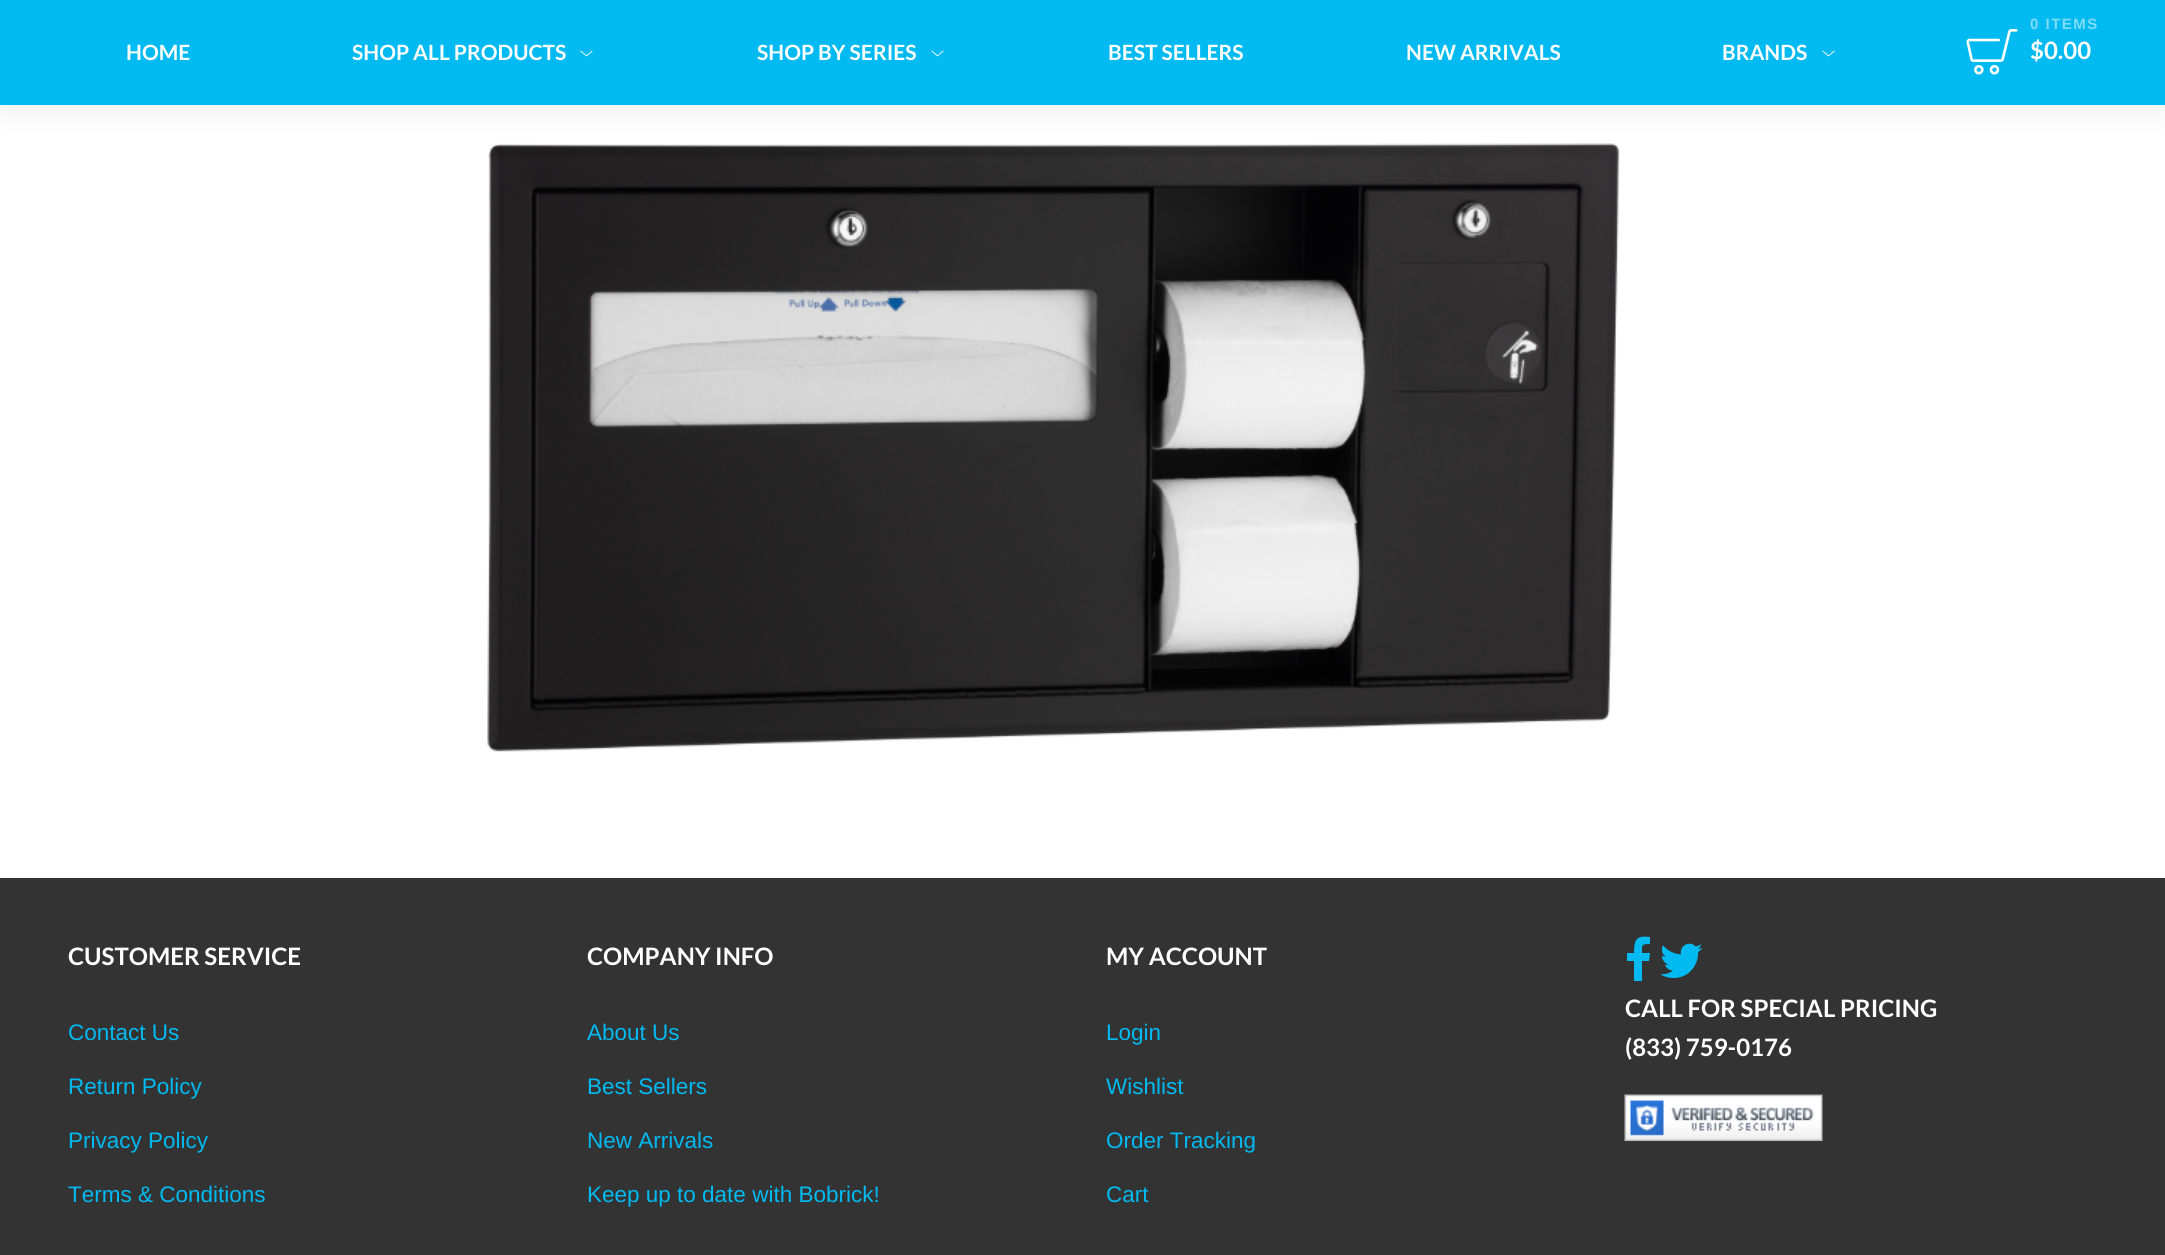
#include <cairo.h>
#include <math.h>
#include <stddef.h>

typedef struct { double x, y; const char *s; } line_t;

static void ink(cairo_t *ctx, unsigned color) {
    cairo_set_source_rgb(ctx, (color >> 16) / 255.0, (color >> 8 & 255) / 255.0, (color & 255) / 255.0);
}

static void write_spaced(cairo_t *ctx, double x, double y, const char *s, double letter, double word) {
    cairo_move_to(ctx, x, y);
    while (*s) {
        char ch[5] = {0};
        int n = 0;
        do ch[n++] = *s++; while ((*s & 0xC0) == 0x80);
        cairo_show_text(ctx, ch);
        cairo_rel_move_to(ctx, letter + word * (*ch == ' '), 0);
    }
}

static void round_path(cairo_t *ctx, double x, double y, double w, double h, double r) {
    cairo_new_sub_path(ctx);
    cairo_arc(ctx, x + w - r, y + h - r, r, 0, M_PI / 2);
    cairo_arc(ctx, x + r, y + h - r, r, M_PI / 2, M_PI);
    cairo_arc(ctx, x + r, y + r, r, M_PI, 1.5 * M_PI);
    cairo_arc(ctx, x + w - r, y + r, r, 1.5 * M_PI, 2 * M_PI);
    cairo_close_path(ctx);
}

static void blur_box(cairo_t *ctx, double x, double y, double w, double h, double r, double blur, double alpha) {
    cairo_push_group_with_content(ctx, CAIRO_CONTENT_ALPHA);
    cairo_set_operator(ctx, CAIRO_OPERATOR_SOURCE);
    for (int i = 15; i >= -15 && fmin(w, h) + blur * i / 3 > 0; i -= 2) {
        double e = blur * i / 6;
        cairo_set_source_rgba(ctx, 0, 0, 0, alpha * erfc((i - 1) / 8.5) / 2);
        round_path(ctx, x - e, y - e, w + 2 * e, h + 2 * e, fmax(0, fmin(r + e + blur * .6, fmin(w, h) / 2 + e)));
        cairo_fill(ctx);
    }
    cairo_pattern_t *soft = cairo_pop_group(ctx);
    cairo_mask(ctx, soft);
    cairo_pattern_destroy(soft);
}

static void paste(cairo_t *ctx, const char *path, double x, double y, double w, double h) {
    cairo_surface_t *image = cairo_image_surface_create_from_png(path);
    cairo_save(ctx);
    cairo_set_source_surface(ctx, image, x, y);
    cairo_rectangle(ctx, x, y, w, h);
    cairo_fill(ctx);
    cairo_restore(ctx);
    cairo_surface_destroy(image);
}

int main(void) {
    cairo_surface_t *surface = cairo_image_surface_create(CAIRO_FORMAT_RGB24, 2165, 1255);
    cairo_t *ctx = cairo_create(surface);
    cairo_font_options_t *options = cairo_font_options_create();
    cairo_font_options_set_hint_metrics(options, CAIRO_HINT_METRICS_OFF);
    cairo_font_options_set_hint_style(options, CAIRO_HINT_STYLE_NONE);
    cairo_set_font_options(ctx, options);
    cairo_set_miter_limit(ctx, 4);
    ink(ctx, 0xFFFFFF);
    cairo_paint(ctx);
    paste(ctx, "media/3.png", 487, 143, 1133, 609);
    ink(ctx, 0x000000);
    blur_box(ctx, 0, 15, 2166, 105, 0, 11, 0.04);
    ink(ctx, 0x00BAF1);
    cairo_rectangle(ctx, 0, 0, 2165, 105);
    cairo_fill(ctx);
    cairo_select_font_face(ctx, "Lato", CAIRO_FONT_SLANT_NORMAL, CAIRO_FONT_WEIGHT_BOLD);
    cairo_set_font_size(ctx, 21);
    ink(ctx, 0xFFFFFF);
    cairo_move_to(ctx, 126, 60);
    cairo_show_text(ctx, "HOME");
    cairo_move_to(ctx, 352, 60);
    cairo_show_text(ctx, "SHOP ALL PRODUCTS");
    paste(ctx, "media/1.png", 580, 50, 13, 7);
    cairo_move_to(ctx, 757, 60);
    cairo_show_text(ctx, "SHOP BY SERIES");
    paste(ctx, "media/1.png", 931, 50, 13, 7);
    {
        static const line_t items[] = {
            {1108, 60, "BEST SELLERS"},
            {1406, 60, "NEW ARRIVALS"},
            {1722, 60, "BRANDS"},
        };
        for (size_t i = 0; i < sizeof items / sizeof *items; i++) {
            cairo_move_to(ctx, items[i].x, items[i].y);
            cairo_show_text(ctx, items[i].s);
        }
    }
    paste(ctx, "media/1.png", 1822, 50, 13, 7);
    paste(ctx, "media/2.png", 1966, 29, 52, 46);
    cairo_select_font_face(ctx, "Liberation Sans", CAIRO_FONT_SLANT_NORMAL, CAIRO_FONT_WEIGHT_BOLD);
    cairo_set_font_size(ctx, 15);
    ink(ctx, 0x80DDF8);
    write_spaced(ctx, 2030, 29, "0 ITEMS", 1.5, 0);
    cairo_select_font_face(ctx, "Lato", CAIRO_FONT_SLANT_NORMAL, CAIRO_FONT_WEIGHT_BOLD);
    cairo_set_font_size(ctx, 24);
    ink(ctx, 0xFFFFFF);
    cairo_move_to(ctx, 2030, 59);
    cairo_show_text(ctx, "$0.00");
    ink(ctx, 0x333333);
    cairo_rectangle(ctx, 0, 878, 2165, 377);
    cairo_fill(ctx);
    ink(ctx, 0xFFFFFF);
    cairo_move_to(ctx, 68, 965);
    cairo_show_text(ctx, "CUSTOMER SERVICE");
    cairo_select_font_face(ctx, "Liberation Sans", CAIRO_FONT_SLANT_NORMAL, CAIRO_FONT_WEIGHT_NORMAL);
    cairo_set_font_size(ctx, 22.5);
    ink(ctx, 0x00BAF1);
    {
        static const line_t items[] = {
            {68, 1040, "Contact Us"},
            {68, 1094, "Return Policy"},
            {68, 1148, "Privacy Policy"},
            {68, 1202, "Terms & Conditions"},
        };
        for (size_t i = 0; i < sizeof items / sizeof *items; i++) {
            cairo_move_to(ctx, items[i].x, items[i].y);
            cairo_show_text(ctx, items[i].s);
        }
    }
    cairo_select_font_face(ctx, "Lato", CAIRO_FONT_SLANT_NORMAL, CAIRO_FONT_WEIGHT_BOLD);
    cairo_set_font_size(ctx, 24);
    ink(ctx, 0xFFFFFF);
    cairo_move_to(ctx, 587, 965);
    cairo_show_text(ctx, "COMPANY INFO");
    cairo_select_font_face(ctx, "Liberation Sans", CAIRO_FONT_SLANT_NORMAL, CAIRO_FONT_WEIGHT_NORMAL);
    cairo_set_font_size(ctx, 22.5);
    ink(ctx, 0x00BAF1);
    {
        static const line_t items[] = {
            {587, 1040, "About Us"},
            {587, 1094, "Best Sellers"},
            {587, 1148, "New Arrivals"},
            {587, 1202, "Keep up to date with Bobrick!"},
        };
        for (size_t i = 0; i < sizeof items / sizeof *items; i++) {
            cairo_move_to(ctx, items[i].x, items[i].y);
            cairo_show_text(ctx, items[i].s);
        }
    }
    cairo_select_font_face(ctx, "Lato", CAIRO_FONT_SLANT_NORMAL, CAIRO_FONT_WEIGHT_BOLD);
    cairo_set_font_size(ctx, 24);
    ink(ctx, 0xFFFFFF);
    cairo_move_to(ctx, 1106, 965);
    cairo_show_text(ctx, "MY ACCOUNT");
    cairo_select_font_face(ctx, "Liberation Sans", CAIRO_FONT_SLANT_NORMAL, CAIRO_FONT_WEIGHT_NORMAL);
    cairo_set_font_size(ctx, 22.5);
    ink(ctx, 0x00BAF1);
    {
        static const line_t items[] = {
            {1106, 1040, "Login"},
            {1106, 1094, "Wishlist"},
            {1106, 1148, "Order Tracking"},
            {1106, 1202, "Cart"},
        };
        for (size_t i = 0; i < sizeof items / sizeof *items; i++) {
            cairo_move_to(ctx, items[i].x, items[i].y);
            cairo_show_text(ctx, items[i].s);
        }
    }
    cairo_new_path(ctx);
    cairo_move_to(ctx, 1650, 937);
    cairo_line_to(ctx, 1650, 944);
    cairo_curve_to(ctx, 1641, 944, 1642, 945, 1642, 953);
    cairo_line_to(ctx, 1650, 953);
    cairo_line_to(ctx, 1649, 961);
    cairo_line_to(ctx, 1642, 961);
    cairo_line_to(ctx, 1642, 981);
    cairo_line_to(ctx, 1634, 981);
    cairo_line_to(ctx, 1634, 961);
    cairo_line_to(ctx, 1627, 961);
    cairo_line_to(ctx, 1627, 953);
    cairo_line_to(ctx, 1634, 953);
    cairo_curve_to(ctx, 1634, 940, 1636, 935, 1650, 937);
    cairo_close_path(ctx);
    cairo_fill(ctx);
    paste(ctx, "media/4.png", 1660, 943, 43, 35);
    cairo_select_font_face(ctx, "Lato", CAIRO_FONT_SLANT_NORMAL, CAIRO_FONT_WEIGHT_BOLD);
    cairo_set_font_size(ctx, 24);
    ink(ctx, 0xFFFFFF);
    cairo_move_to(ctx, 1625, 1017);
    cairo_show_text(ctx, "CALL FOR SPECIAL PRICING");
    cairo_move_to(ctx, 1625, 1056);
    cairo_show_text(ctx, "(833) 759-0176");
    paste(ctx, "media/5.png", 1624, 1094, 199, 47);
    cairo_surface_write_to_png(surface, "image.png");
    cairo_font_options_destroy(options);
    cairo_destroy(ctx);
    cairo_surface_destroy(surface);
    return 0;
}
